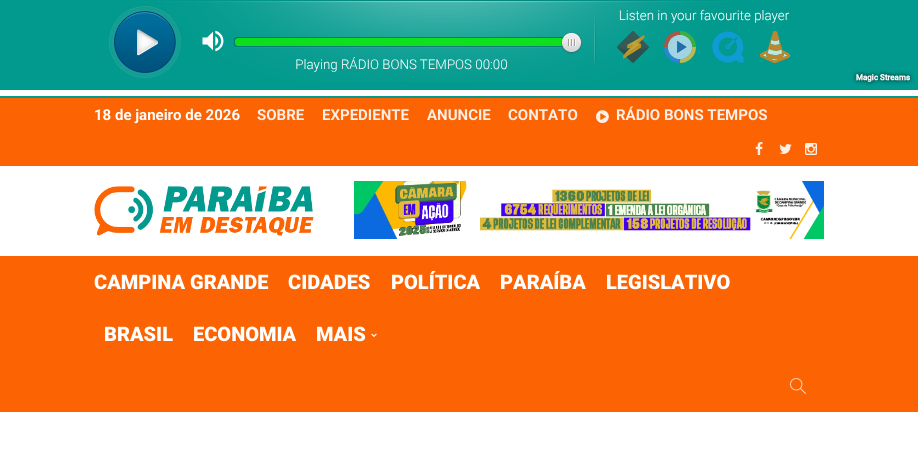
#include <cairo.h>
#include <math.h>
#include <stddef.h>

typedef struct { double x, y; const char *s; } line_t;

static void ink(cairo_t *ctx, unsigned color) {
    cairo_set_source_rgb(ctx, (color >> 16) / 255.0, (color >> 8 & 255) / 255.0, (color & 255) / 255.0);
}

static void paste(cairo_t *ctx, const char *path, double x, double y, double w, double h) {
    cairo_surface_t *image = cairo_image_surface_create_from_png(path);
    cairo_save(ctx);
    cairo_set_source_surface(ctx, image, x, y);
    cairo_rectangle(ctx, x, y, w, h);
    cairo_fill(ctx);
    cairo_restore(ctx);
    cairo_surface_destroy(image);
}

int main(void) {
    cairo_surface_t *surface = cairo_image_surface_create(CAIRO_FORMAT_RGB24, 918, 450);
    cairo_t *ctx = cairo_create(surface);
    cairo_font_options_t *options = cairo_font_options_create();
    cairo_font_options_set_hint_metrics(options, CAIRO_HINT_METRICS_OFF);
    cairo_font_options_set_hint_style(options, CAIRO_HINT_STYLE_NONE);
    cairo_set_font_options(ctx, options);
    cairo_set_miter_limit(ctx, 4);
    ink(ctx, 0xFFFFFF);
    cairo_paint(ctx);
    paste(ctx, "media/1.png", 0, 0, 918, 90);
    ink(ctx, 0xFC6302);
    cairo_rectangle(ctx, 0, 98, 918, 68);
    cairo_fill(ctx);
    ink(ctx, 0x029A8E);
    cairo_rectangle(ctx, 0, 96, 918, 2);
    cairo_fill(ctx);
    cairo_select_font_face(ctx, "Roboto", CAIRO_FONT_SLANT_NORMAL, CAIRO_FONT_WEIGHT_BOLD);
    cairo_set_font_size(ctx, 15);
    ink(ctx, 0xFFFFFF);
    cairo_move_to(ctx, 94, 120);
    cairo_show_text(ctx, "18 de janeiro de 2026");
    ink(ctx, 0xFFEFE6);
    {
        static const line_t items[] = {
            {257, 120, "SOBRE"},
            {322, 120, "EXPEDIENTE"},
            {427, 120, "ANUNCIE"},
            {508, 120, "CONTATO"},
        };
        for (size_t i = 0; i < sizeof items / sizeof *items; i++) {
            cairo_move_to(ctx, items[i].x, items[i].y);
            cairo_show_text(ctx, items[i].s);
        }
    }
    paste(ctx, "media/2.png", 596, 110, 13, 14);
    cairo_move_to(ctx, 616, 120);
    cairo_show_text(ctx, "RÁDIO BONS TEMPOS");
    paste(ctx, "media/3.png", 755, 142, 8, 13);
    paste(ctx, "media/4.png", 779, 144, 13, 10);
    paste(ctx, "media/5.png", 805, 143, 12, 12);
    paste(ctx, "media/6.png", 94, 186, 220, 50);
    paste(ctx, "media/7.png", 354, 181, 470, 58);
    ink(ctx, 0xFC6302);
    cairo_rectangle(ctx, 0, 256, 918, 156);
    cairo_fill(ctx);
    cairo_select_font_face(ctx, "Roboto Black", CAIRO_FONT_SLANT_NORMAL, CAIRO_FONT_WEIGHT_NORMAL);
    cairo_set_font_size(ctx, 20);
    ink(ctx, 0xFFFFFF);
    {
        static const line_t items[] = {
            {94, 289, "CAMPINA GRANDE"},
            {288, 289, "CIDADES"},
            {391, 289, "POLÍTICA"},
            {500, 289, "PARAÍBA"},
            {606, 289, "LEGISLATIVO"},
            {104, 341, "BRASIL"},
            {193, 341, "ECONOMIA"},
            {316, 341, "MAIS"},
        };
        for (size_t i = 0; i < sizeof items / sizeof *items; i++) {
            cairo_move_to(ctx, items[i].x, items[i].y);
            cairo_show_text(ctx, items[i].s);
        }
    }
    paste(ctx, "media/8.png", 371, 333, 6, 4);
    paste(ctx, "media/9.png", 790, 378, 16, 16);
    cairo_surface_write_to_png(surface, "image.png");
    cairo_font_options_destroy(options);
    cairo_destroy(ctx);
    cairo_surface_destroy(surface);
    return 0;
}
